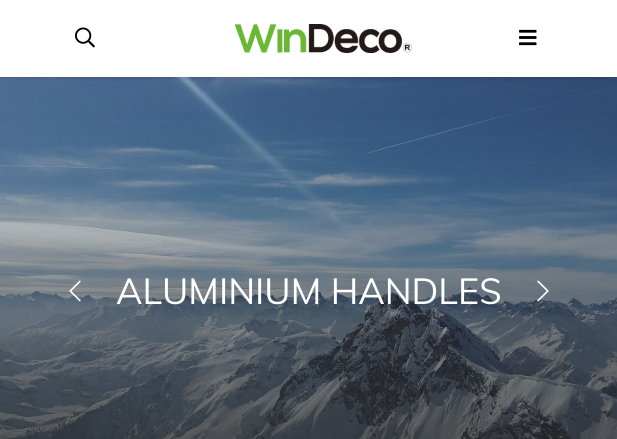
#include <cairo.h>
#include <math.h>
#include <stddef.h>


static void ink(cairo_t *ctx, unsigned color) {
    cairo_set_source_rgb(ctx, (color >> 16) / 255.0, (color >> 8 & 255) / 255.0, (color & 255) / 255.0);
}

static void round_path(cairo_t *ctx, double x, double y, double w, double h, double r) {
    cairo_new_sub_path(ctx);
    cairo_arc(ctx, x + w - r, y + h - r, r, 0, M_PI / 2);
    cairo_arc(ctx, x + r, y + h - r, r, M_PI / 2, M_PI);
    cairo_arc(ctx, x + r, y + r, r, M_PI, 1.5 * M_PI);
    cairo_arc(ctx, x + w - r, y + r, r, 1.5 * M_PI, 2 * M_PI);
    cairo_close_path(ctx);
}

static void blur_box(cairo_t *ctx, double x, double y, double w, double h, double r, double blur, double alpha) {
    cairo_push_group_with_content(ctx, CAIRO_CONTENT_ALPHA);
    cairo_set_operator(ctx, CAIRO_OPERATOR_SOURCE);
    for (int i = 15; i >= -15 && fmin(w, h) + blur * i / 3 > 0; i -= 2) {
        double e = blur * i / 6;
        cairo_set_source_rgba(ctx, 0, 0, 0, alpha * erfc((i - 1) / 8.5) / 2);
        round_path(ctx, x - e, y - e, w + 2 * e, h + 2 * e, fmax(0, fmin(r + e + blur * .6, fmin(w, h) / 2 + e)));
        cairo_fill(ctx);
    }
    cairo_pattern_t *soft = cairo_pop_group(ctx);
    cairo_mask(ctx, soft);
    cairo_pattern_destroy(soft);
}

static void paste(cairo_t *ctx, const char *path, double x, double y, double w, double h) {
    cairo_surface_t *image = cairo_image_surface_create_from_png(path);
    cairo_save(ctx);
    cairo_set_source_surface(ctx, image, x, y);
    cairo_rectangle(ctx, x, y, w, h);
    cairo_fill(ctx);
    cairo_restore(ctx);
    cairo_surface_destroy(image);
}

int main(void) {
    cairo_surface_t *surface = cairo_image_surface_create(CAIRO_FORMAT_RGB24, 617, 439);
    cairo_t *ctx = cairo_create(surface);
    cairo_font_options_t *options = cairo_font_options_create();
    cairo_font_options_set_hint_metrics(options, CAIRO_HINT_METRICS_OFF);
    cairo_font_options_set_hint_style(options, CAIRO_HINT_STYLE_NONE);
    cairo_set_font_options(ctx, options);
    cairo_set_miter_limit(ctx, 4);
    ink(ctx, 0xFFFFFF);
    cairo_paint(ctx);
    paste(ctx, "media/4.png", 0, 77, 617, 362);
    cairo_save(ctx);
    cairo_rectangle(ctx, 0, 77, 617, 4);
    cairo_clip(ctx);
    ink(ctx, 0x000000);
    blur_box(ctx, 0, 2, 617, 77, 0, 2, 0.1);
    cairo_restore(ctx);
    paste(ctx, "media/1.png", 75, 27, 20, 21);
    paste(ctx, "media/2.png", 234, 24, 178, 29);
    paste(ctx, "media/3.png", 519, 29, 18, 17);
    paste(ctx, "media/5.png", 69, 280, 12, 22);
    cairo_select_font_face(ctx, "Muli", CAIRO_FONT_SLANT_NORMAL, CAIRO_FONT_WEIGHT_NORMAL);
    cairo_set_font_size(ctx, 36);
    ink(ctx, 0xFFFFFF);
    cairo_move_to(ctx, 116, 304);
    cairo_show_text(ctx, "ALUMINIUM HANDLES");
    paste(ctx, "media/6.png", 537, 280, 12, 22);
    cairo_surface_write_to_png(surface, "image.png");
    cairo_font_options_destroy(options);
    cairo_destroy(ctx);
    cairo_surface_destroy(surface);
    return 0;
}
